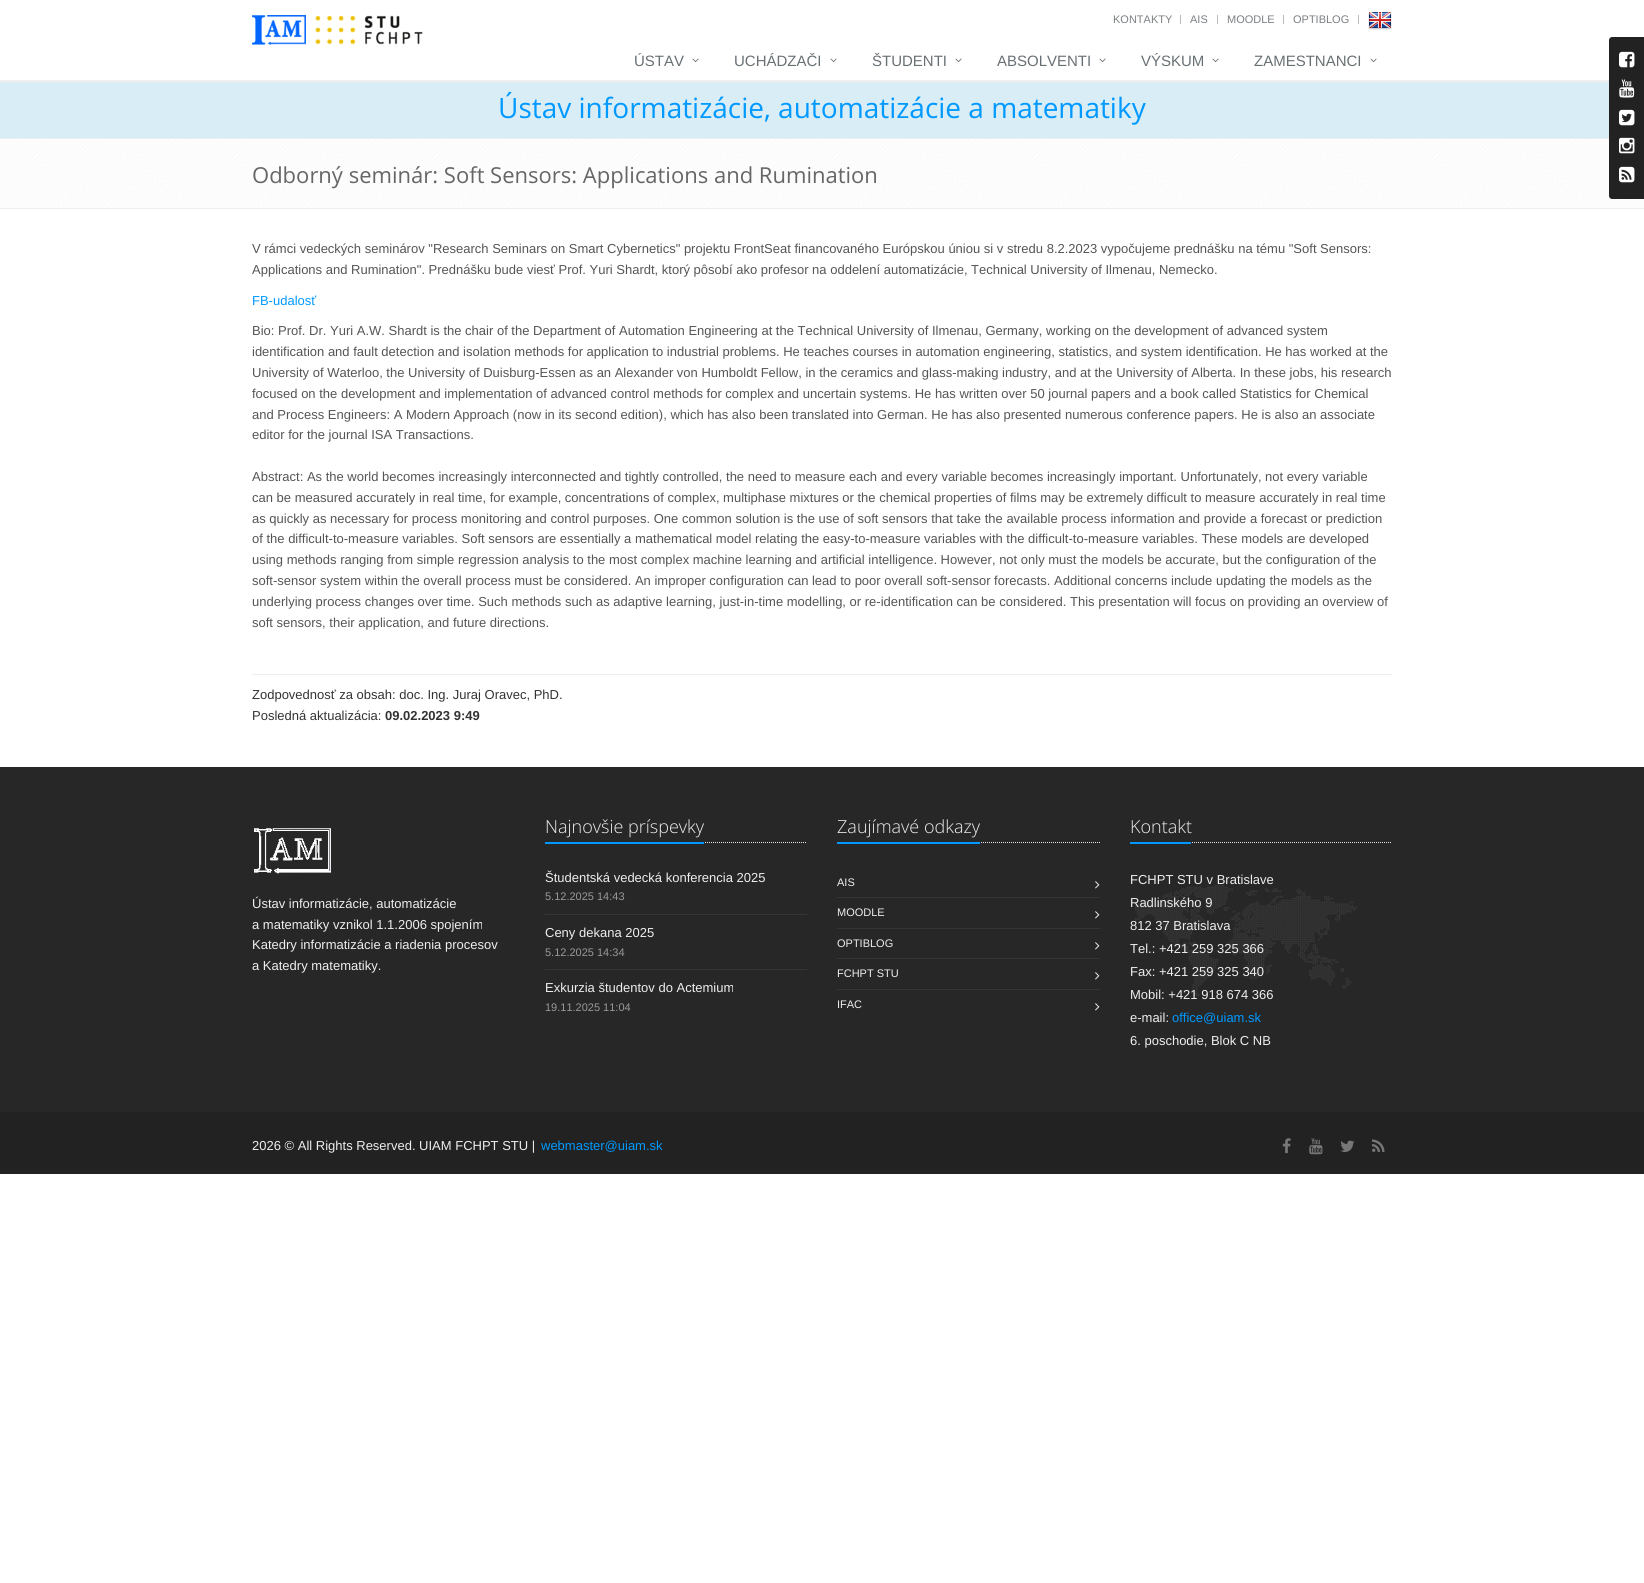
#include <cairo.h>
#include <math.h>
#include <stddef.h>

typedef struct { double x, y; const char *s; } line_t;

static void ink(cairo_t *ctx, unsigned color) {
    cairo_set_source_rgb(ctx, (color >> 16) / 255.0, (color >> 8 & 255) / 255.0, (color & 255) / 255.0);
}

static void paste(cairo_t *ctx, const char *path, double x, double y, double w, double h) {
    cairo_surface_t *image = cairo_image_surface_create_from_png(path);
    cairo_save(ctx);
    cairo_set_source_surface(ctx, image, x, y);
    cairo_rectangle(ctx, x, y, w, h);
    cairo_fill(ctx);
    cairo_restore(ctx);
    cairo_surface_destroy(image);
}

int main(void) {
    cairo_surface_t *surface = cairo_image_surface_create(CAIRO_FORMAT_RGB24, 1644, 1583);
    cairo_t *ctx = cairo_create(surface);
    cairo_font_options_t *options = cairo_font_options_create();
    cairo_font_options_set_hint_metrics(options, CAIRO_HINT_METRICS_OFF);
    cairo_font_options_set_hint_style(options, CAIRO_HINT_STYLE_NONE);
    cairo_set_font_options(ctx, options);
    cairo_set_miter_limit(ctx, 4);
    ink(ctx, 0xFFFFFF);
    cairo_paint(ctx);
    ink(ctx, 0xEEEEEE);
    cairo_rectangle(ctx, 0, 80, 1609, 2);
    cairo_fill(ctx);
    paste(ctx, "media/1.png", 252, 15, 54, 30);
    paste(ctx, "media/2.png", 315, 15, 108, 30);
    cairo_select_font_face(ctx, "Liberation Sans", CAIRO_FONT_SLANT_NORMAL, CAIRO_FONT_WEIGHT_NORMAL);
    cairo_set_font_size(ctx, 11);
    ink(ctx, 0x7C8082);
    cairo_move_to(ctx, 1113, 23);
    cairo_show_text(ctx, "KONTAKTY");
    ink(ctx, 0xBBBBBB);
    cairo_rectangle(ctx, 1180, 15, 1, 9);
    cairo_fill(ctx);
    ink(ctx, 0x7C8082);
    cairo_move_to(ctx, 1190, 23);
    cairo_show_text(ctx, "AIS");
    ink(ctx, 0xBBBBBB);
    cairo_rectangle(ctx, 1217, 15, 1, 9);
    cairo_fill(ctx);
    ink(ctx, 0x7C8082);
    cairo_move_to(ctx, 1227, 23);
    cairo_show_text(ctx, "MOODLE");
    ink(ctx, 0xBBBBBB);
    cairo_rectangle(ctx, 1283, 15, 1, 9);
    cairo_fill(ctx);
    ink(ctx, 0x7C8082);
    cairo_move_to(ctx, 1293, 23);
    cairo_show_text(ctx, "OPTIBLOG");
    ink(ctx, 0xBBBBBB);
    cairo_rectangle(ctx, 1358, 15, 1, 9);
    cairo_fill(ctx);
    paste(ctx, "media/3.png", 1368, 12, 24, 18);
    cairo_set_font_size(ctx, 15);
    ink(ctx, 0x687074);
    cairo_move_to(ctx, 634, 66);
    cairo_show_text(ctx, "ÚSTAV");
    paste(ctx, "media/4.png", 692, 58, 7, 5);
    cairo_move_to(ctx, 734, 66);
    cairo_show_text(ctx, "UCHÁDZAČI");
    paste(ctx, "media/4.png", 830, 58, 7, 5);
    cairo_move_to(ctx, 872, 66);
    cairo_show_text(ctx, "ŠTUDENTI");
    paste(ctx, "media/4.png", 955, 58, 7, 5);
    cairo_move_to(ctx, 997, 66);
    cairo_show_text(ctx, "ABSOLVENTI");
    paste(ctx, "media/4.png", 1099, 58, 7, 5);
    cairo_move_to(ctx, 1141, 66);
    cairo_show_text(ctx, "VÝSKUM");
    paste(ctx, "media/4.png", 1212, 58, 7, 5);
    cairo_move_to(ctx, 1254, 66);
    cairo_show_text(ctx, "ZAMESTNANCI");
    paste(ctx, "media/4.png", 1370, 58, 7, 5);
    ink(ctx, 0xD9EDF7);
    cairo_rectangle(ctx, 0, 82, 1609, 56);
    cairo_fill(ctx);
    ink(ctx, 0xEEEEEE);
    cairo_rectangle(ctx, 0, 138, 1609, 1);
    cairo_fill(ctx);
    cairo_select_font_face(ctx, "Open Sans", CAIRO_FONT_SLANT_NORMAL, CAIRO_FONT_WEIGHT_NORMAL);
    cairo_set_font_size(ctx, 28);
    ink(ctx, 0x0099FF);
    cairo_move_to(ctx, 498, 118);
    cairo_show_text(ctx, "Ústav informatizácie, automatizácie a matematiky");
    paste(ctx, "media/5.png", 0, 139, 1644, 69);
    ink(ctx, 0xEEEEEE);
    cairo_rectangle(ctx, 0, 208, 1644, 1);
    cairo_fill(ctx);
    cairo_set_font_size(ctx, 22);
    ink(ctx, 0x666666);
    cairo_move_to(ctx, 252, 183);
    cairo_show_text(ctx, "Odborný seminár: Soft Sensors: Applications and Rumination");
    cairo_select_font_face(ctx, "Liberation Sans", CAIRO_FONT_SLANT_NORMAL, CAIRO_FONT_WEIGHT_NORMAL);
    cairo_set_font_size(ctx, 13);
    ink(ctx, 0x555555);
    cairo_move_to(ctx, 252, 253);
    cairo_show_text(ctx, "V rámci vedeckých seminárov \"Research Seminars on Smart Cybernetics\" projektu FrontSeat financovaného Európskou úniou si v stredu 8.2.2023 vypočujeme prednášku na tému \"Soft Sensors:");
    cairo_move_to(ctx, 252, 274);
    cairo_show_text(ctx, "Applications and Rumination\". Prednášku bude viesť Prof. Yuri Shardt, ktorý pôsobí ako profesor na oddelení automatizácie, Technical University of Ilmenau, Nemecko.");
    ink(ctx, 0x0099FF);
    cairo_move_to(ctx, 252, 305);
    cairo_show_text(ctx, "FB-udalosť");
    ink(ctx, 0x555555);
    {
        static const line_t items[] = {
            {252, 335, "Bio: Prof. Dr. Yuri A.W. Shardt is the chair of the Department of Automation Engineering at the Technical University of Ilmenau, Germany, working on the development of advanced system"},
            {252, 356, "identification and fault detection and isolation methods for application to industrial problems. He teaches courses in automation engineering, statistics, and system identification. He has worked at the"},
            {252, 377, "University of Waterloo, the University of Duisburg-Essen as an Alexander von Humboldt Fellow, in the ceramics and glass-making industry, and at the University of Alberta. In these jobs, his research"},
            {252, 398, "focused on the development and implementation of advanced control methods for complex and uncertain systems. He has written over 50 journal papers and a book called Statistics for Chemical"},
            {252, 419, "and Process Engineers: A Modern Approach (now in its second edition), which has also been translated into German. He has also presented numerous conference papers. He is also an associate"},
            {252, 439, "editor for the journal ISA Transactions."},
            {252, 481, "Abstract: As the world becomes increasingly interconnected and tightly controlled, the need to measure each and every variable becomes increasingly important. Unfortunately, not every variable"},
            {252, 502, "can be measured accurately in real time, for example, concentrations of complex, multiphase mixtures or the chemical properties of films may be extremely difficult to measure accurately in real time"},
            {252, 523, "as quickly as necessary for process monitoring and control purposes. One common solution is the use of soft sensors that take the available process information and provide a forecast or prediction"},
            {252, 543, "of the difficult-to-measure variables. Soft sensors are essentially a mathematical model relating the easy-to-measure variables with the difficult-to-measure variables. These models are developed"},
            {252, 564, "using methods ranging from simple regression analysis to the most complex machine learning and artificial intelligence. However, not only must the models be accurate, but the configuration of the"},
            {252, 585, "soft-sensor system within the overall process must be considered. An improper configuration can lead to poor overall soft-sensor forecasts. Additional concerns include updating the models as the"},
            {252, 606, "underlying process changes over time. Such methods such as adaptive learning, just-in-time modelling, or re-identification can be considered. This presentation will focus on providing an overview of"},
            {252, 627, "soft sensors, their application, and future directions."},
        };
        for (size_t i = 0; i < sizeof items / sizeof *items; i++) {
            cairo_move_to(ctx, items[i].x, items[i].y);
            cairo_show_text(ctx, items[i].s);
        }
    }
    ink(ctx, 0xEEEEEE);
    cairo_rectangle(ctx, 252, 674, 1140, 1);
    cairo_fill(ctx);
    ink(ctx, 0x333333);
    cairo_move_to(ctx, 252, 699);
    cairo_show_text(ctx, "Zodpovednosť za obsah: doc. Ing. Juraj Oravec, PhD.");
    cairo_move_to(ctx, 252, 720);
    cairo_show_text(ctx, "Posledná aktualizácia:");
    cairo_select_font_face(ctx, "Liberation Sans", CAIRO_FONT_SLANT_NORMAL, CAIRO_FONT_WEIGHT_BOLD);
    cairo_move_to(ctx, 385, 720);
    cairo_show_text(ctx, "09.02.2023 9:49");
    ink(ctx, 0x272727);
    cairo_rectangle(ctx, 0, 767, 1644, 345);
    cairo_fill(ctx);
    paste(ctx, "media/6.png", 254, 828, 77, 46);
    cairo_select_font_face(ctx, "Liberation Sans", CAIRO_FONT_SLANT_NORMAL, CAIRO_FONT_WEIGHT_NORMAL);
    ink(ctx, 0xEEEEEE);
    {
        static const line_t items[] = {
            {252, 908, "Ústav informatizácie, automatizácie"},
            {252, 929, "a matematiky vznikol 1.1.2006 spojením"},
            {252, 949, "Katedry informatizácie a riadenia procesov"},
            {252, 970, "a Katedry matematiky."},
        };
        for (size_t i = 0; i < sizeof items / sizeof *items; i++) {
            cairo_move_to(ctx, items[i].x, items[i].y);
            cairo_show_text(ctx, items[i].s);
        }
    }
    cairo_new_path(ctx);
    cairo_move_to(ctx, 545, 842.5);
    cairo_line_to(ctx, 807, 842.5);
    ink(ctx, 0xE4E9F0);
    cairo_set_line_width(ctx, 1);
    cairo_set_dash(ctx, (double[]){1, 1}, 2, 0);
    cairo_stroke(ctx);
    ink(ctx, 0x0099FF);
    cairo_rectangle(ctx, 545, 842, 159, 2);
    cairo_fill(ctx);
    cairo_select_font_face(ctx, "Open Sans Light", CAIRO_FONT_SLANT_NORMAL, CAIRO_FONT_WEIGHT_NORMAL);
    cairo_set_font_size(ctx, 18);
    ink(ctx, 0xEEEEEE);
    cairo_move_to(ctx, 545, 833);
    cairo_show_text(ctx, "Najnovšie príspevky");
    cairo_select_font_face(ctx, "Liberation Sans", CAIRO_FONT_SLANT_NORMAL, CAIRO_FONT_WEIGHT_NORMAL);
    cairo_set_font_size(ctx, 13);
    cairo_move_to(ctx, 545, 882);
    cairo_show_text(ctx, "Študentská vedecká konferencia 2025");
    cairo_set_font_size(ctx, 11);
    ink(ctx, 0x999999);
    cairo_move_to(ctx, 545, 900);
    cairo_show_text(ctx, "5.12.2025 14:43");
    ink(ctx, 0x353535);
    cairo_rectangle(ctx, 545, 914, 262, 1);
    cairo_fill(ctx);
    cairo_set_font_size(ctx, 13);
    ink(ctx, 0xEEEEEE);
    cairo_move_to(ctx, 545, 937);
    cairo_show_text(ctx, "Ceny dekana 2025");
    cairo_set_font_size(ctx, 11);
    ink(ctx, 0x999999);
    cairo_move_to(ctx, 545, 956);
    cairo_show_text(ctx, "5.12.2025 14:34");
    ink(ctx, 0x353535);
    cairo_rectangle(ctx, 545, 969, 262, 1);
    cairo_fill(ctx);
    cairo_set_font_size(ctx, 13);
    ink(ctx, 0xEEEEEE);
    cairo_move_to(ctx, 545, 992);
    cairo_show_text(ctx, "Exkurzia študentov do Actemium");
    cairo_set_font_size(ctx, 11);
    ink(ctx, 0x999999);
    cairo_move_to(ctx, 545, 1011);
    cairo_show_text(ctx, "19.11.2025 11:04");
    cairo_new_path(ctx);
    cairo_move_to(ctx, 837, 842.5);
    cairo_line_to(ctx, 1100, 842.5);
    ink(ctx, 0xE4E9F0);
    cairo_stroke(ctx);
    ink(ctx, 0x0099FF);
    cairo_rectangle(ctx, 837, 842, 143, 2);
    cairo_fill(ctx);
    cairo_select_font_face(ctx, "Open Sans Light", CAIRO_FONT_SLANT_NORMAL, CAIRO_FONT_WEIGHT_NORMAL);
    cairo_set_font_size(ctx, 18);
    ink(ctx, 0xEEEEEE);
    cairo_move_to(ctx, 837, 833);
    cairo_show_text(ctx, "Zaujímavé odkazy");
    cairo_select_font_face(ctx, "Liberation Sans", CAIRO_FONT_SLANT_NORMAL, CAIRO_FONT_WEIGHT_NORMAL);
    cairo_set_font_size(ctx, 11);
    cairo_move_to(ctx, 837, 886);
    cairo_show_text(ctx, "AIS");
    paste(ctx, "media/7.png", 1095, 881, 5, 8);
    ink(ctx, 0x353535);
    cairo_rectangle(ctx, 837, 897, 263, 1);
    cairo_fill(ctx);
    ink(ctx, 0xEEEEEE);
    cairo_move_to(ctx, 837, 916);
    cairo_show_text(ctx, "MOODLE");
    paste(ctx, "media/7.png", 1095, 911, 5, 8);
    ink(ctx, 0x353535);
    cairo_rectangle(ctx, 837, 928, 263, 1);
    cairo_fill(ctx);
    ink(ctx, 0xEEEEEE);
    cairo_move_to(ctx, 837, 947);
    cairo_show_text(ctx, "OPTIBLOG");
    paste(ctx, "media/7.png", 1095, 942, 5, 8);
    ink(ctx, 0x353535);
    cairo_rectangle(ctx, 837, 958, 263, 1);
    cairo_fill(ctx);
    ink(ctx, 0xEEEEEE);
    cairo_move_to(ctx, 837, 977);
    cairo_show_text(ctx, "FCHPT STU");
    paste(ctx, "media/7.png", 1095, 972, 5, 8);
    ink(ctx, 0x353535);
    cairo_rectangle(ctx, 837, 989, 263, 1);
    cairo_fill(ctx);
    ink(ctx, 0xEEEEEE);
    cairo_move_to(ctx, 837, 1008);
    cairo_show_text(ctx, "IFAC");
    paste(ctx, "media/7.png", 1095, 1003, 5, 8);
    paste(ctx, "media/8.png", 1135, 885, 222, 111);
    cairo_new_path(ctx);
    cairo_move_to(ctx, 1130, 842.5);
    cairo_line_to(ctx, 1392, 842.5);
    ink(ctx, 0xE4E9F0);
    cairo_stroke(ctx);
    ink(ctx, 0x0099FF);
    cairo_rectangle(ctx, 1130, 842, 61, 2);
    cairo_fill(ctx);
    cairo_select_font_face(ctx, "Open Sans Light", CAIRO_FONT_SLANT_NORMAL, CAIRO_FONT_WEIGHT_NORMAL);
    cairo_set_font_size(ctx, 18);
    ink(ctx, 0xEEEEEE);
    cairo_move_to(ctx, 1130, 833);
    cairo_show_text(ctx, "Kontakt");
    cairo_select_font_face(ctx, "Liberation Sans", CAIRO_FONT_SLANT_NORMAL, CAIRO_FONT_WEIGHT_NORMAL);
    cairo_set_font_size(ctx, 13);
    {
        static const line_t items[] = {
            {1130, 884, "FCHPT STU v Bratislave"},
            {1130, 907, "Radlinského 9"},
            {1130, 930, "812 37 Bratislava"},
            {1130, 953, "Tel.: +421 259 325 366"},
            {1130, 976, "Fax: +421 259 325 340"},
            {1130, 999, "Mobil: +421 918 674 366"},
            {1130, 1022, "e-mail:"},
        };
        for (size_t i = 0; i < sizeof items / sizeof *items; i++) {
            cairo_move_to(ctx, items[i].x, items[i].y);
            cairo_show_text(ctx, items[i].s);
        }
    }
    ink(ctx, 0x0099FF);
    cairo_move_to(ctx, 1172, 1022);
    cairo_show_text(ctx, "office@uiam.sk");
    ink(ctx, 0xEEEEEE);
    cairo_move_to(ctx, 1130, 1045);
    cairo_show_text(ctx, "6. poschodie, Blok C NB");
    ink(ctx, 0x222222);
    cairo_rectangle(ctx, 0, 1112, 1644, 62);
    cairo_fill(ctx);
    ink(ctx, 0xEEEEEE);
    cairo_move_to(ctx, 252, 1150);
    cairo_show_text(ctx, "2026 © All Rights Reserved. UIAM FCHPT STU |");
    ink(ctx, 0x0099FF);
    cairo_move_to(ctx, 541, 1150);
    cairo_show_text(ctx, "webmaster@uiam.sk");
    paste(ctx, "media/9.png", 1282, 1138, 9, 16);
    paste(ctx, "media/10.png", 1309, 1138, 14, 17);
    paste(ctx, "media/11.png", 1340, 1140, 15, 12);
    paste(ctx, "media/12.png", 1372, 1139, 13, 13);
    ink(ctx, 0x222222);
    cairo_new_path(ctx);
    cairo_move_to(ctx, 1612, 37);
    cairo_line_to(ctx, 1644, 37);
    cairo_line_to(ctx, 1644, 199);
    cairo_line_to(ctx, 1612, 199);
    cairo_curve_to(ctx, 1610.5, 199, 1609, 197.5, 1609, 196);
    cairo_line_to(ctx, 1609, 40);
    cairo_curve_to(ctx, 1609, 38.5, 1610.5, 37, 1612, 37);
    cairo_close_path(ctx);
    cairo_fill(ctx);
    paste(ctx, "media/13.png", 1619, 51, 16, 17);
    paste(ctx, "media/14.png", 1619, 79, 16, 19);
    paste(ctx, "media/15.png", 1619, 109, 16, 17);
    paste(ctx, "media/16.png", 1619, 137, 16, 17);
    paste(ctx, "media/17.png", 1619, 166, 16, 17);
    cairo_surface_write_to_png(surface, "image.png");
    cairo_font_options_destroy(options);
    cairo_destroy(ctx);
    cairo_surface_destroy(surface);
    return 0;
}
